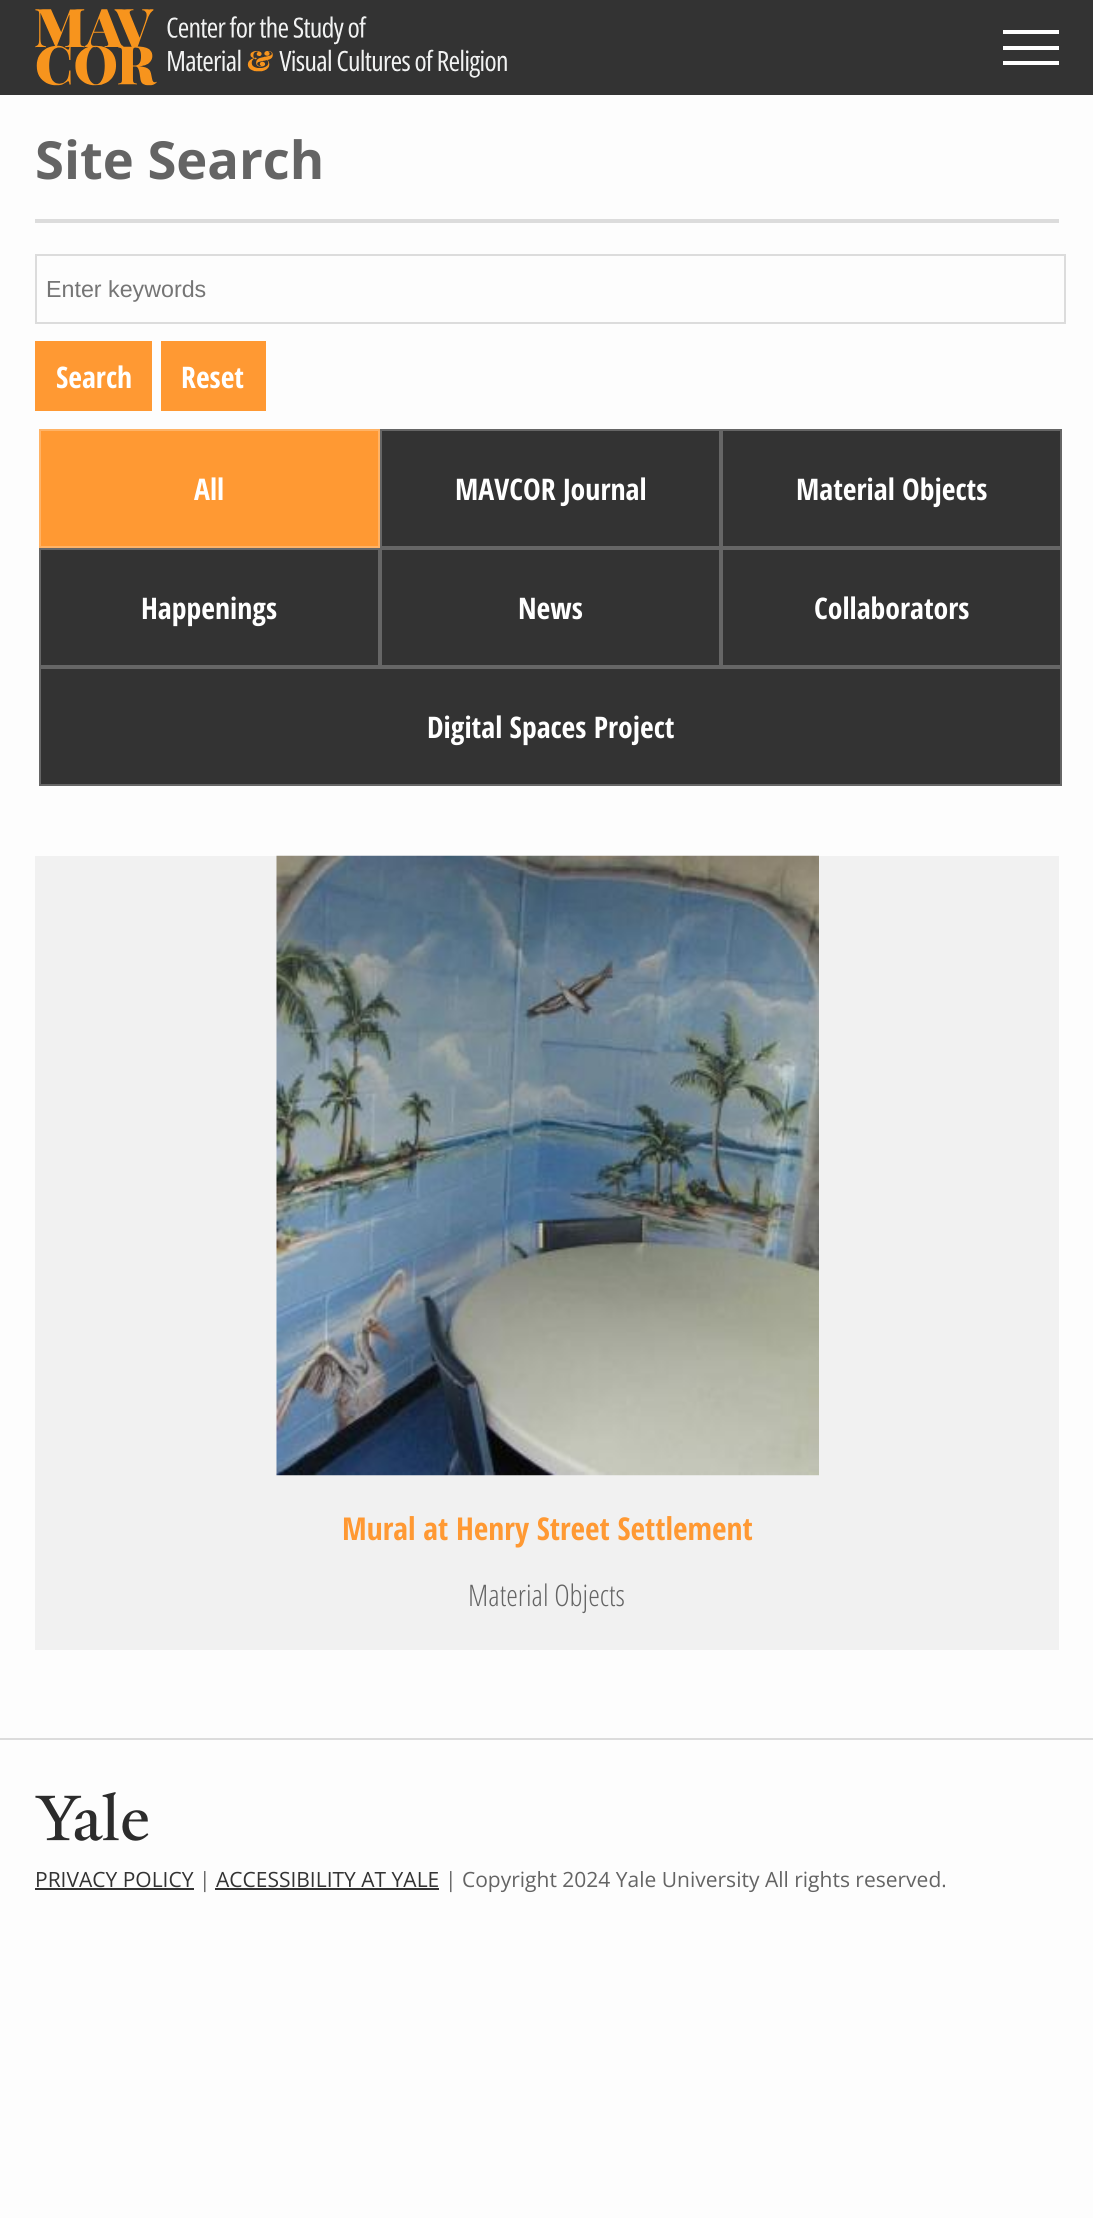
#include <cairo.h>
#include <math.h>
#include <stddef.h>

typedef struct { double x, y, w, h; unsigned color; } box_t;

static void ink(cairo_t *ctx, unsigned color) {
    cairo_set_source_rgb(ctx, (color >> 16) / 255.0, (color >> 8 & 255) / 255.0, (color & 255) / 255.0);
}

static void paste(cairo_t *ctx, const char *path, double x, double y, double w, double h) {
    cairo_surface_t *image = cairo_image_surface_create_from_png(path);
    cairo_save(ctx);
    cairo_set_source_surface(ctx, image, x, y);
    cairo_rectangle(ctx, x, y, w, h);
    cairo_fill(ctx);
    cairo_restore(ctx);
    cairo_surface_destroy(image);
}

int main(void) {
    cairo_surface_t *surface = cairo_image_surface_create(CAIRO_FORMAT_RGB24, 1093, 2218);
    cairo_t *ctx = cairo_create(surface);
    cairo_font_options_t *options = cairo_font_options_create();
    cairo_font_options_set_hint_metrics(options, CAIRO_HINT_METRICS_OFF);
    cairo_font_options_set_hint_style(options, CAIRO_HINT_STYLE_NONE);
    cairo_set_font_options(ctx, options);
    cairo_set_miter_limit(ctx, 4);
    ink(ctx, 0xFDFDFD);
    cairo_paint(ctx);
    ink(ctx, 0x333333);
    cairo_rectangle(ctx, 0, 0, 1093, 95);
    cairo_fill(ctx);
    paste(ctx, "media/1.png", 35, 9, 472, 77);
    {
        static const box_t items[] = {
            {1003, 30, 56, 4, 0xFFFFFF},
            {1003, 46, 56, 4, 0xFFFFFF},
            {1003, 61, 56, 4, 0xFFFFFF},
            {35, 219, 1024, 4, 0xDCDCDC},
        };
        for (size_t i = 0; i < sizeof items / sizeof *items; i++) {
            ink(ctx, items[i].color);
            cairo_rectangle(ctx, items[i].x, items[i].y, items[i].w, items[i].h);
            cairo_fill(ctx);
        }
    }
    cairo_select_font_face(ctx, "Open Sans", CAIRO_FONT_SLANT_NORMAL, CAIRO_FONT_WEIGHT_BOLD);
    cairo_set_font_size(ctx, 52.5);
    ink(ctx, 0x646464);
    cairo_move_to(ctx, 35, 179);
    cairo_show_text(ctx, "Site Search");
    cairo_rectangle(ctx, 36, 255, 1029, 68);
    ink(ctx, 0xDCDCDC);
    cairo_stroke(ctx);
    cairo_select_font_face(ctx, "Liberation Sans", CAIRO_FONT_SLANT_NORMAL, CAIRO_FONT_WEIGHT_NORMAL);
    cairo_set_font_size(ctx, 23.25);
    ink(ctx, 0x757575);
    cairo_move_to(ctx, 46, 297);
    cairo_show_text(ctx, "Enter keywords");
    ink(ctx, 0xFF9933);
    cairo_rectangle(ctx, 35, 341, 117, 70);
    cairo_fill(ctx);
    cairo_select_font_face(ctx, "Open Sans Condensed", CAIRO_FONT_SLANT_NORMAL, CAIRO_FONT_WEIGHT_BOLD);
    cairo_set_font_size(ctx, 29.75);
    ink(ctx, 0xFFFFFF);
    cairo_move_to(ctx, 56, 388);
    cairo_show_text(ctx, "Search");
    ink(ctx, 0xFF9933);
    cairo_rectangle(ctx, 161, 341, 105, 70);
    cairo_fill(ctx);
    ink(ctx, 0xFFFFFF);
    cairo_move_to(ctx, 181, 388);
    cairo_show_text(ctx, "Reset");
    ink(ctx, 0xFF9933);
    cairo_rectangle(ctx, 40, 430, 339, 117);
    cairo_fill_preserve(ctx);
    ink(ctx, 0xFFB366);
    cairo_stroke(ctx);
    ink(ctx, 0xFFFFFF);
    cairo_move_to(ctx, 194, 500);
    cairo_show_text(ctx, "All");
    ink(ctx, 0x333333);
    cairo_rectangle(ctx, 381, 430, 339, 117);
    cairo_fill_preserve(ctx);
    ink(ctx, 0x666666);
    cairo_stroke(ctx);
    ink(ctx, 0xFFFFFF);
    cairo_move_to(ctx, 455, 500);
    cairo_show_text(ctx, "MAVCOR Journal");
    ink(ctx, 0x333333);
    cairo_rectangle(ctx, 722, 430, 339, 117);
    cairo_fill_preserve(ctx);
    ink(ctx, 0x666666);
    cairo_stroke(ctx);
    ink(ctx, 0xFFFFFF);
    cairo_move_to(ctx, 796, 500);
    cairo_show_text(ctx, "Material Objects");
    ink(ctx, 0x333333);
    cairo_rectangle(ctx, 40, 549, 339, 117);
    cairo_fill_preserve(ctx);
    ink(ctx, 0x666666);
    cairo_stroke(ctx);
    ink(ctx, 0xFFFFFF);
    cairo_move_to(ctx, 141, 619);
    cairo_show_text(ctx, "Happenings");
    ink(ctx, 0x333333);
    cairo_rectangle(ctx, 381, 549, 339, 117);
    cairo_fill_preserve(ctx);
    ink(ctx, 0x666666);
    cairo_stroke(ctx);
    ink(ctx, 0xFFFFFF);
    cairo_move_to(ctx, 518, 619);
    cairo_show_text(ctx, "News");
    ink(ctx, 0x333333);
    cairo_rectangle(ctx, 722, 549, 339, 117);
    cairo_fill_preserve(ctx);
    ink(ctx, 0x666666);
    cairo_stroke(ctx);
    ink(ctx, 0xFFFFFF);
    cairo_move_to(ctx, 814, 619);
    cairo_show_text(ctx, "Collaborators");
    ink(ctx, 0x333333);
    cairo_rectangle(ctx, 40, 668, 1021, 117);
    cairo_fill_preserve(ctx);
    ink(ctx, 0x666666);
    cairo_stroke(ctx);
    ink(ctx, 0xFFFFFF);
    cairo_move_to(ctx, 427, 738);
    cairo_show_text(ctx, "Digital Spaces Project");
    ink(ctx, 0xF1F1F1);
    cairo_rectangle(ctx, 35, 856, 1024, 794);
    cairo_fill(ctx);
    paste(ctx, "media/2.png", 276, 855, 543, 621);
    cairo_set_font_size(ctx, 31.5);
    ink(ctx, 0xFF9933);
    cairo_move_to(ctx, 342, 1540);
    cairo_show_text(ctx, "Mural at Henry Street Settlement");
    cairo_select_font_face(ctx, "Open Sans Condensed Light", CAIRO_FONT_SLANT_NORMAL, CAIRO_FONT_WEIGHT_NORMAL);
    cairo_set_font_size(ctx, 29.75);
    ink(ctx, 0x646464);
    cairo_move_to(ctx, 468, 1606);
    cairo_show_text(ctx, "Material Objects");
    ink(ctx, 0xDCDCDC);
    cairo_rectangle(ctx, 0, 1738, 1093, 2);
    cairo_fill(ctx);
    paste(ctx, "media/3.png", 35, 1792, 114, 49);
    cairo_select_font_face(ctx, "Open Sans", CAIRO_FONT_SLANT_NORMAL, CAIRO_FONT_WEIGHT_NORMAL);
    cairo_set_font_size(ctx, 21);
    ink(ctx, 0x333333);
    cairo_move_to(ctx, 35, 1887);
    cairo_show_text(ctx, "PRIVACY POLICY");
    cairo_rectangle(ctx, 35, 1888, 159, 2);
    cairo_fill(ctx);
    ink(ctx, 0x646464);
    cairo_move_to(ctx, 199, 1887);
    cairo_show_text(ctx, "|");
    ink(ctx, 0x333333);
    cairo_move_to(ctx, 216, 1887);
    cairo_show_text(ctx, "ACCESSIBILITY AT YALE");
    cairo_rectangle(ctx, 215, 1888, 224, 2);
    cairo_fill(ctx);
    ink(ctx, 0x646464);
    cairo_move_to(ctx, 445, 1887);
    cairo_show_text(ctx, "| Copyright 2024 Yale University All rights reserved.");
    cairo_surface_write_to_png(surface, "image.png");
    cairo_font_options_destroy(options);
    cairo_destroy(ctx);
    cairo_surface_destroy(surface);
    return 0;
}
